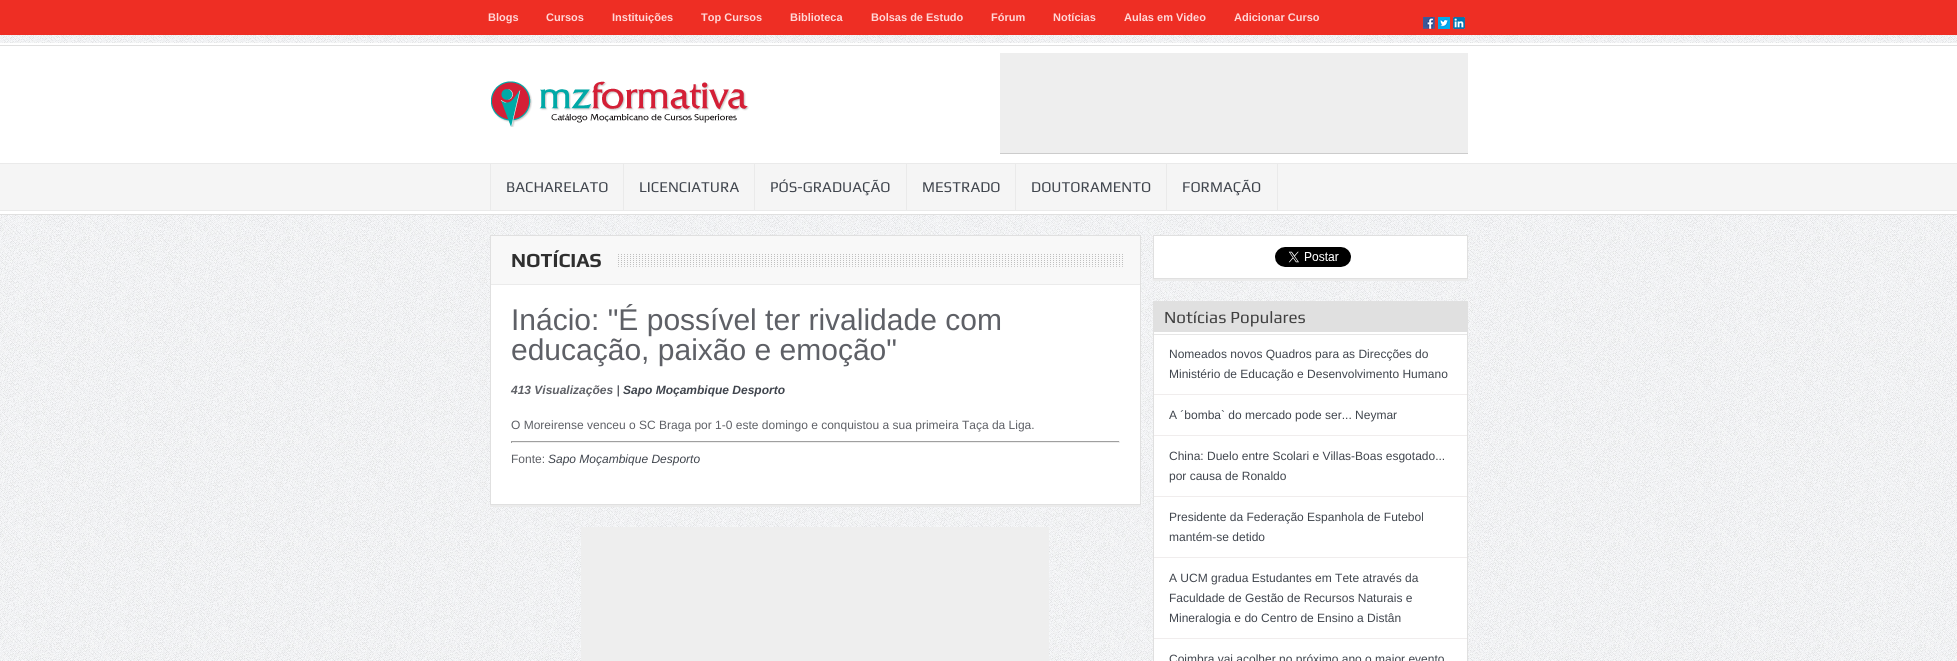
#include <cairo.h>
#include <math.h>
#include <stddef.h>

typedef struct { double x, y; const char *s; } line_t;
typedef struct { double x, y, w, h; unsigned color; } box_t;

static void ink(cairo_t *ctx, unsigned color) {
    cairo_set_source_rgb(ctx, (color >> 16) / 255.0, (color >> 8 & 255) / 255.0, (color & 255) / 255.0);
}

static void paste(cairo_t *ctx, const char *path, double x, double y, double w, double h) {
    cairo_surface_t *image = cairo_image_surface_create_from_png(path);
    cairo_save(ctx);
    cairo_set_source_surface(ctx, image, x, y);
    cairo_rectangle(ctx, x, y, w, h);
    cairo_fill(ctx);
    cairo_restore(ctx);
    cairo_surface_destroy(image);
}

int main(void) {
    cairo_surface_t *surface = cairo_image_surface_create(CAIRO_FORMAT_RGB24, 1957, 661);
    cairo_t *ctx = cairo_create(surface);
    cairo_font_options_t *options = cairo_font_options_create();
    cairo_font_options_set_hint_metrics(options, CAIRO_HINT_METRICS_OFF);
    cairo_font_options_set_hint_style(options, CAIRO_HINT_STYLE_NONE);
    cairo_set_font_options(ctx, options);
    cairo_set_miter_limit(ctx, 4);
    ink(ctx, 0xFFFFFF);
    cairo_paint(ctx);
    paste(ctx, "media/1.png", 0, 35, 1957, 626);
    ink(ctx, 0xEE2E24);
    cairo_rectangle(ctx, 0, 0, 1957, 35);
    cairo_fill(ctx);
    cairo_select_font_face(ctx, "Liberation Sans", CAIRO_FONT_SLANT_NORMAL, CAIRO_FONT_WEIGHT_BOLD);
    cairo_set_font_size(ctx, 11);
    ink(ctx, 0xFFD7D7);
    {
        static const line_t items[] = {
            {488, 21, "Blogs"},
            {546, 21, "Cursos"},
            {612, 21, "Instituições"},
            {701, 21, "Top Cursos"},
            {790, 21, "Biblioteca"},
            {871, 21, "Bolsas de Estudo"},
            {991, 21, "Fórum"},
            {1053, 21, "Notícias"},
            {1124, 21, "Aulas em Video"},
            {1234, 21, "Adicionar Curso"},
        };
        for (size_t i = 0; i < sizeof items / sizeof *items; i++) {
            cairo_move_to(ctx, items[i].x, items[i].y);
            cairo_show_text(ctx, items[i].s);
        }
    }
    paste(ctx, "media/2.png", 1423, 17, 12, 12);
    paste(ctx, "media/3.png", 1438, 17, 12, 12);
    paste(ctx, "media/4.png", 1453, 17, 12, 12);
    ink(ctx, 0xFFFFFF);
    cairo_rectangle(ctx, 0, 43, 1957, 120);
    cairo_fill(ctx);
    ink(ctx, 0xE0E0E0);
    cairo_rectangle(ctx, 0, 45, 1957, 1);
    cairo_fill(ctx);
    paste(ctx, "media/5.png", 491, 81, 258, 46);
    {
        static const box_t items[] = {
            {1000, 53, 468, 100, 0xEEEEEE},
            {1000, 153, 468, 1, 0xCCCCCC},
            {0, 211, 1957, 3, 0xFFFFFF},
            {0, 214, 1957, 1, 0xE0E0E0},
            {0, 163, 1957, 48, 0xEAEAEA},
            {0, 164, 1957, 46, 0xF5F5F5},
            {623, 164, 1, 46, 0xEAEAEA},
            {490, 164, 1, 46, 0xEAEAEA},
        };
        for (size_t i = 0; i < sizeof items / sizeof *items; i++) {
            ink(ctx, items[i].color);
            cairo_rectangle(ctx, items[i].x, items[i].y, items[i].w, items[i].h);
            cairo_fill(ctx);
        }
    }
    cairo_select_font_face(ctx, "Play", CAIRO_FONT_SLANT_NORMAL, CAIRO_FONT_WEIGHT_NORMAL);
    cairo_set_font_size(ctx, 15);
    ink(ctx, 0x40454D);
    cairo_move_to(ctx, 506, 192);
    cairo_show_text(ctx, "BACHARELATO");
    ink(ctx, 0xEAEAEA);
    cairo_rectangle(ctx, 754, 164, 1, 46);
    cairo_fill(ctx);
    ink(ctx, 0x40454D);
    cairo_move_to(ctx, 639, 192);
    cairo_show_text(ctx, "LICENCIATURA");
    ink(ctx, 0xEAEAEA);
    cairo_rectangle(ctx, 906, 164, 1, 46);
    cairo_fill(ctx);
    ink(ctx, 0x40454D);
    cairo_move_to(ctx, 770, 192);
    cairo_show_text(ctx, "PÓS-GRADUAÇÃO");
    ink(ctx, 0xEAEAEA);
    cairo_rectangle(ctx, 1015, 164, 1, 46);
    cairo_fill(ctx);
    ink(ctx, 0x40454D);
    cairo_move_to(ctx, 922, 192);
    cairo_show_text(ctx, "MESTRADO");
    ink(ctx, 0xEAEAEA);
    cairo_rectangle(ctx, 1166, 164, 1, 46);
    cairo_fill(ctx);
    ink(ctx, 0x40454D);
    cairo_move_to(ctx, 1031, 192);
    cairo_show_text(ctx, "DOUTORAMENTO");
    ink(ctx, 0xEAEAEA);
    cairo_rectangle(ctx, 1277, 164, 1, 46);
    cairo_fill(ctx);
    ink(ctx, 0x40454D);
    cairo_move_to(ctx, 1182, 192);
    cairo_show_text(ctx, "FORMAÇÃO");
    ink(ctx, 0xEBEBEB);
    cairo_rectangle(ctx, 490, 505, 651, 2);
    cairo_fill(ctx);
    ink(ctx, 0xFFFFFF);
    cairo_rectangle(ctx, 491, 285, 649, 219);
    cairo_fill(ctx);
    cairo_rectangle(ctx, 490.5, 235.5, 650, 269);
    ink(ctx, 0xE0E0E0);
    cairo_set_line_width(ctx, 1);
    cairo_stroke(ctx);
    ink(ctx, 0xF8F8F8);
    cairo_rectangle(ctx, 491, 236, 649, 48);
    cairo_fill(ctx);
    ink(ctx, 0xEBEBEB);
    cairo_rectangle(ctx, 491, 284, 649, 1);
    cairo_fill(ctx);
    paste(ctx, "media/6.png", 618, 254, 505, 13);
    cairo_select_font_face(ctx, "Play", CAIRO_FONT_SLANT_NORMAL, CAIRO_FONT_WEIGHT_BOLD);
    cairo_set_font_size(ctx, 20);
    ink(ctx, 0x2F2F2F);
    cairo_move_to(ctx, 511, 267);
    cairo_show_text(ctx, "NOTÍCIAS");
    cairo_select_font_face(ctx, "Liberation Sans", CAIRO_FONT_SLANT_NORMAL, CAIRO_FONT_WEIGHT_NORMAL);
    cairo_set_font_size(ctx, 30);
    ink(ctx, 0x5E6066);
    cairo_move_to(ctx, 511, 330);
    cairo_show_text(ctx, "Inácio: \"É possível ter rivalidade com");
    cairo_move_to(ctx, 511, 360);
    cairo_show_text(ctx, "educação, paixão e emoção\"");
    cairo_select_font_face(ctx, "Liberation Sans", CAIRO_FONT_SLANT_ITALIC, CAIRO_FONT_WEIGHT_BOLD);
    cairo_set_font_size(ctx, 12);
    cairo_move_to(ctx, 511, 394);
    cairo_show_text(ctx, "413 Visualizações |");
    ink(ctx, 0x40454D);
    cairo_move_to(ctx, 623, 394);
    cairo_show_text(ctx, "Sapo Moçambique Desporto");
    cairo_select_font_face(ctx, "Liberation Sans", CAIRO_FONT_SLANT_NORMAL, CAIRO_FONT_WEIGHT_NORMAL);
    ink(ctx, 0x5E6066);
    cairo_move_to(ctx, 511, 429);
    cairo_show_text(ctx, "O Moreirense venceu o SC Braga por 1-0 este domingo e conquistou a sua primeira Taça da Liga.");
    {
        static const box_t items[] = {
            {511, 441, 609, 1, 0x9F9F9F},
            {1119, 441, 1, 2, 0xEEEEEE},
            {511, 442, 609, 1, 0xEEEEEE},
            {511, 441, 1, 2, 0x9F9F9F},
        };
        for (size_t i = 0; i < sizeof items / sizeof *items; i++) {
            ink(ctx, items[i].color);
            cairo_rectangle(ctx, items[i].x, items[i].y, items[i].w, items[i].h);
            cairo_fill(ctx);
        }
    }
    ink(ctx, 0x5E6066);
    cairo_move_to(ctx, 511, 463);
    cairo_show_text(ctx, "Fonte:");
    cairo_select_font_face(ctx, "Liberation Sans", CAIRO_FONT_SLANT_ITALIC, CAIRO_FONT_WEIGHT_NORMAL);
    ink(ctx, 0x40454D);
    cairo_move_to(ctx, 548, 463);
    cairo_show_text(ctx, "Sapo Moçambique Desporto");
    ink(ctx, 0xEEEEEE);
    cairo_rectangle(ctx, 581, 527, 468, 134);
    cairo_fill(ctx);
    ink(ctx, 0xEBEBEB);
    cairo_rectangle(ctx, 1153, 279, 315, 2);
    cairo_fill(ctx);
    ink(ctx, 0xFFFFFF);
    cairo_rectangle(ctx, 1153.5, 235.5, 314, 43);
    cairo_fill_preserve(ctx);
    ink(ctx, 0xE0E0E0);
    cairo_stroke(ctx);
    paste(ctx, "media/7.png", 1275, 247, 76, 20);
    ink(ctx, 0xFFFFFF);
    cairo_rectangle(ctx, 1154, 332, 313, 329);
    cairo_fill(ctx);
    cairo_rectangle(ctx, 1153.5, 301.5, 314, 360);
    ink(ctx, 0xE0E0E0);
    cairo_stroke(ctx);
    cairo_rectangle(ctx, 1154, 302, 313, 30);
    cairo_fill(ctx);
    cairo_select_font_face(ctx, "Play", CAIRO_FONT_SLANT_NORMAL, CAIRO_FONT_WEIGHT_NORMAL);
    cairo_set_font_size(ctx, 17);
    ink(ctx, 0x404040);
    cairo_move_to(ctx, 1164, 323);
    cairo_show_text(ctx, "Notícias Populares");
    ink(ctx, 0xE6E6E6);
    cairo_rectangle(ctx, 1154, 334, 313, 1);
    cairo_fill(ctx);
    ink(ctx, 0xF0EDED);
    cairo_rectangle(ctx, 1154, 394, 313, 1);
    cairo_fill(ctx);
    cairo_select_font_face(ctx, "Liberation Sans", CAIRO_FONT_SLANT_NORMAL, CAIRO_FONT_WEIGHT_NORMAL);
    cairo_set_font_size(ctx, 12);
    ink(ctx, 0x40454D);
    cairo_move_to(ctx, 1169, 358);
    cairo_show_text(ctx, "Nomeados novos Quadros para as Direcções do");
    cairo_move_to(ctx, 1169, 378);
    cairo_show_text(ctx, "Ministério de Educação e Desenvolvimento Humano");
    ink(ctx, 0xF0EDED);
    cairo_rectangle(ctx, 1154, 435, 313, 1);
    cairo_fill(ctx);
    ink(ctx, 0x40454D);
    cairo_move_to(ctx, 1169, 419);
    cairo_show_text(ctx, "A ´bomba` do mercado pode ser... Neymar");
    ink(ctx, 0xF0EDED);
    cairo_rectangle(ctx, 1154, 496, 313, 1);
    cairo_fill(ctx);
    ink(ctx, 0x40454D);
    cairo_move_to(ctx, 1169, 460);
    cairo_show_text(ctx, "China: Duelo entre Scolari e Villas-Boas esgotado...");
    cairo_move_to(ctx, 1169, 480);
    cairo_show_text(ctx, "por causa de Ronaldo");
    ink(ctx, 0xF0EDED);
    cairo_rectangle(ctx, 1154, 557, 313, 1);
    cairo_fill(ctx);
    ink(ctx, 0x40454D);
    cairo_move_to(ctx, 1169, 521);
    cairo_show_text(ctx, "Presidente da Federação Espanhola de Futebol");
    cairo_move_to(ctx, 1169, 541);
    cairo_show_text(ctx, "mantém-se detido");
    ink(ctx, 0xF0EDED);
    cairo_rectangle(ctx, 1154, 638, 313, 1);
    cairo_fill(ctx);
    ink(ctx, 0x40454D);
    {
        static const line_t items[] = {
            {1169, 582, "A UCM gradua Estudantes em Tete através da"},
            {1169, 602, "Faculdade de Gestão de Recursos Naturais e"},
            {1169, 622, "Mineralogia e do Centro de Ensino a Distân"},
            {1169, 663, "Coimbra vai acolher no próximo ano o maior evento"},
        };
        for (size_t i = 0; i < sizeof items / sizeof *items; i++) {
            cairo_move_to(ctx, items[i].x, items[i].y);
            cairo_show_text(ctx, items[i].s);
        }
    }
    cairo_surface_write_to_png(surface, "image.png");
    cairo_font_options_destroy(options);
    cairo_destroy(ctx);
    cairo_surface_destroy(surface);
    return 0;
}
